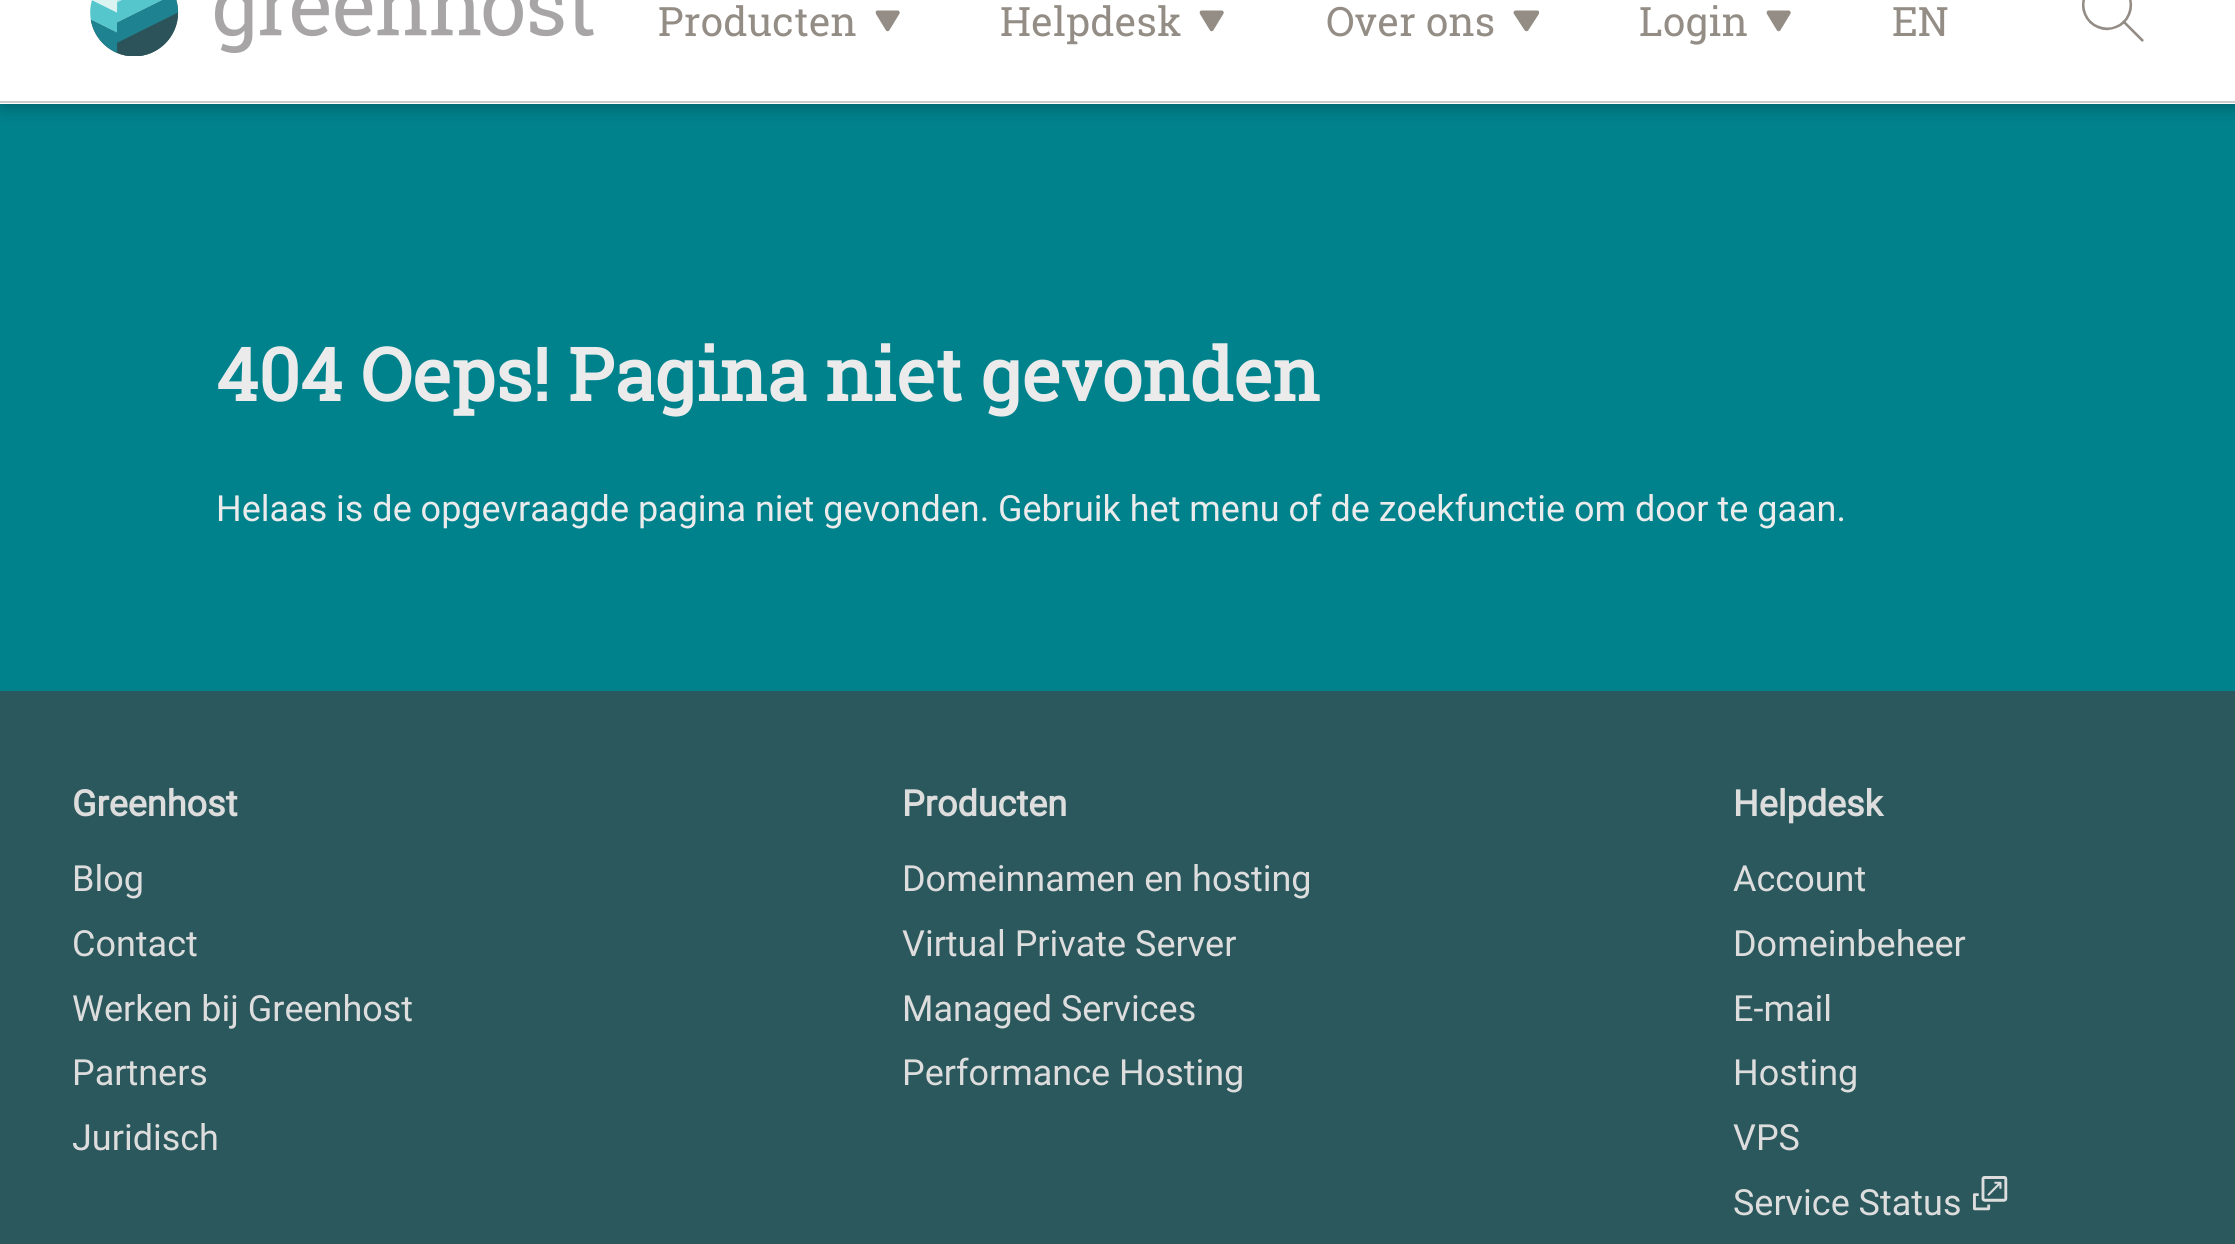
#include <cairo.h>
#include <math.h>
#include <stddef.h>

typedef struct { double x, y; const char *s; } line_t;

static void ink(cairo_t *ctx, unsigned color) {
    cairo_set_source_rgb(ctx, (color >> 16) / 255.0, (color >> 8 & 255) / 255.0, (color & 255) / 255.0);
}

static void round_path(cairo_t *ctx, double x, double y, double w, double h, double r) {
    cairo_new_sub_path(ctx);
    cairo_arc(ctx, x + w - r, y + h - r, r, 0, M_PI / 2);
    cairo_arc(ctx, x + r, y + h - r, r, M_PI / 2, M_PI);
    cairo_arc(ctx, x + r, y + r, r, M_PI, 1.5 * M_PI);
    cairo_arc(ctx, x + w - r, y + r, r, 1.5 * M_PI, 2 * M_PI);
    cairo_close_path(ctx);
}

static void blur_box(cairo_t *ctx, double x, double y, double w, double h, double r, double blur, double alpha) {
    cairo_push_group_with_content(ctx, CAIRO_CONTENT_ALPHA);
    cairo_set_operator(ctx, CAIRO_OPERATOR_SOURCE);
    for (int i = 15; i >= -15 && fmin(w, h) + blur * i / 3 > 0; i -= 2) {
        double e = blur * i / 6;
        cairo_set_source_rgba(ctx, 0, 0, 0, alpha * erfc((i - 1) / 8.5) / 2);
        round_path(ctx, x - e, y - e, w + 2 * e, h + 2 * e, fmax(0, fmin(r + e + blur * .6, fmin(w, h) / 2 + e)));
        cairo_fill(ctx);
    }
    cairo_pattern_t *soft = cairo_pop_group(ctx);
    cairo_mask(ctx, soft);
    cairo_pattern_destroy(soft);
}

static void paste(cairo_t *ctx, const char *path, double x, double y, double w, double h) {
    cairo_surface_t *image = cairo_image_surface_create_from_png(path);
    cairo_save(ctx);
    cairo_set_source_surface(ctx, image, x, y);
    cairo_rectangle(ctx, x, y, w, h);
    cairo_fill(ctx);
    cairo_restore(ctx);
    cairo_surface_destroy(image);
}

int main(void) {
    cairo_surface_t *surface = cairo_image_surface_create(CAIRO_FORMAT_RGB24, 2235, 1244);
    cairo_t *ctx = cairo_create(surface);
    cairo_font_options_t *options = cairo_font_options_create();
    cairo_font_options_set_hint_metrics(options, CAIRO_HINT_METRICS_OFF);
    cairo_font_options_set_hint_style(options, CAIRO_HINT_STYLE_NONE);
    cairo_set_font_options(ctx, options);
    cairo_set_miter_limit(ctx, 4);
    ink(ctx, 0x00828D);
    cairo_paint(ctx);
    ink(ctx, 0x000000);
    blur_box(ctx, 2, -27, 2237, 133, 0, 9, 0.3);
    ink(ctx, 0xFFFFFF);
    cairo_rectangle(ctx, 0, 0, 2235, 104);
    cairo_fill(ctx);
    ink(ctx, 0xCCCCCC);
    cairo_rectangle(ctx, 0, 101, 2235, 2);
    cairo_fill(ctx);
    paste(ctx, "media/1.png", 90, 0, 504, 56);
    cairo_select_font_face(ctx, "Roboto Slab", CAIRO_FONT_SLANT_NORMAL, CAIRO_FONT_WEIGHT_NORMAL);
    cairo_set_font_size(ctx, 40.5);
    ink(ctx, 0x938D85);
    cairo_move_to(ctx, 658, 36);
    cairo_show_text(ctx, "Producten");
    paste(ctx, "media/2.png", 875, 10, 25, 22);
    cairo_move_to(ctx, 1000, 36);
    cairo_show_text(ctx, "Helpdesk");
    paste(ctx, "media/2.png", 1199, 10, 25, 22);
    cairo_move_to(ctx, 1326, 36);
    cairo_show_text(ctx, "Over ons");
    paste(ctx, "media/3.png", 1513, 10, 26, 22);
    cairo_move_to(ctx, 1639, 36);
    cairo_show_text(ctx, "Login");
    paste(ctx, "media/4.png", 1766, 10, 25, 22);
    cairo_move_to(ctx, 1892, 36);
    cairo_show_text(ctx, "EN");
    paste(ctx, "media/5.png", 2081, 0, 63, 42);
    cairo_select_font_face(ctx, "Roboto Slab", CAIRO_FONT_SLANT_NORMAL, CAIRO_FONT_WEIGHT_BOLD);
    cairo_set_font_size(ctx, 73);
    ink(ctx, 0xEBEBEB);
    cairo_move_to(ctx, 216, 401);
    cairo_show_text(ctx, "404 Oeps! Pagina niet gevonden");
    cairo_select_font_face(ctx, "Roboto", CAIRO_FONT_SLANT_NORMAL, CAIRO_FONT_WEIGHT_NORMAL);
    cairo_set_font_size(ctx, 36);
    cairo_move_to(ctx, 216, 521);
    cairo_show_text(ctx, "Helaas is de opgevraagde pagina niet gevonden. Gebruik het menu of de zoekfunctie om door te gaan.");
    ink(ctx, 0x2B585D);
    cairo_rectangle(ctx, 0, 691, 2235, 553);
    cairo_fill(ctx);
    cairo_select_font_face(ctx, "Roboto", CAIRO_FONT_SLANT_NORMAL, CAIRO_FONT_WEIGHT_BOLD);
    ink(ctx, 0xDDDDDD);
    cairo_move_to(ctx, 72, 816);
    cairo_show_text(ctx, "Greenhost");
    cairo_select_font_face(ctx, "Roboto", CAIRO_FONT_SLANT_NORMAL, CAIRO_FONT_WEIGHT_NORMAL);
    {
        static const line_t items[] = {
            {72, 891, "Blog"},
            {72, 956, "Contact"},
            {72, 1021, "Werken bij Greenhost"},
            {72, 1085, "Partners"},
            {72, 1150, "Juridisch"},
        };
        for (size_t i = 0; i < sizeof items / sizeof *items; i++) {
            cairo_move_to(ctx, items[i].x, items[i].y);
            cairo_show_text(ctx, items[i].s);
        }
    }
    cairo_select_font_face(ctx, "Roboto", CAIRO_FONT_SLANT_NORMAL, CAIRO_FONT_WEIGHT_BOLD);
    cairo_move_to(ctx, 902, 816);
    cairo_show_text(ctx, "Producten");
    cairo_select_font_face(ctx, "Roboto", CAIRO_FONT_SLANT_NORMAL, CAIRO_FONT_WEIGHT_NORMAL);
    {
        static const line_t items[] = {
            {902, 891, "Domeinnamen en hosting"},
            {902, 956, "Virtual Private Server"},
            {902, 1021, "Managed Services"},
            {902, 1085, "Performance Hosting"},
        };
        for (size_t i = 0; i < sizeof items / sizeof *items; i++) {
            cairo_move_to(ctx, items[i].x, items[i].y);
            cairo_show_text(ctx, items[i].s);
        }
    }
    cairo_select_font_face(ctx, "Roboto", CAIRO_FONT_SLANT_NORMAL, CAIRO_FONT_WEIGHT_BOLD);
    cairo_move_to(ctx, 1733, 816);
    cairo_show_text(ctx, "Helpdesk");
    cairo_select_font_face(ctx, "Roboto", CAIRO_FONT_SLANT_NORMAL, CAIRO_FONT_WEIGHT_NORMAL);
    {
        static const line_t items[] = {
            {1733, 891, "Account"},
            {1733, 956, "Domeinbeheer"},
            {1733, 1021, "E-mail"},
            {1733, 1085, "Hosting"},
            {1733, 1150, "VPS"},
            {1733, 1215, "Service Status"},
        };
        for (size_t i = 0; i < sizeof items / sizeof *items; i++) {
            cairo_move_to(ctx, items[i].x, items[i].y);
            cairo_show_text(ctx, items[i].s);
        }
    }
    paste(ctx, "media/6.png", 1973, 1176, 35, 35);
    cairo_surface_write_to_png(surface, "image.png");
    cairo_font_options_destroy(options);
    cairo_destroy(ctx);
    cairo_surface_destroy(surface);
    return 0;
}
